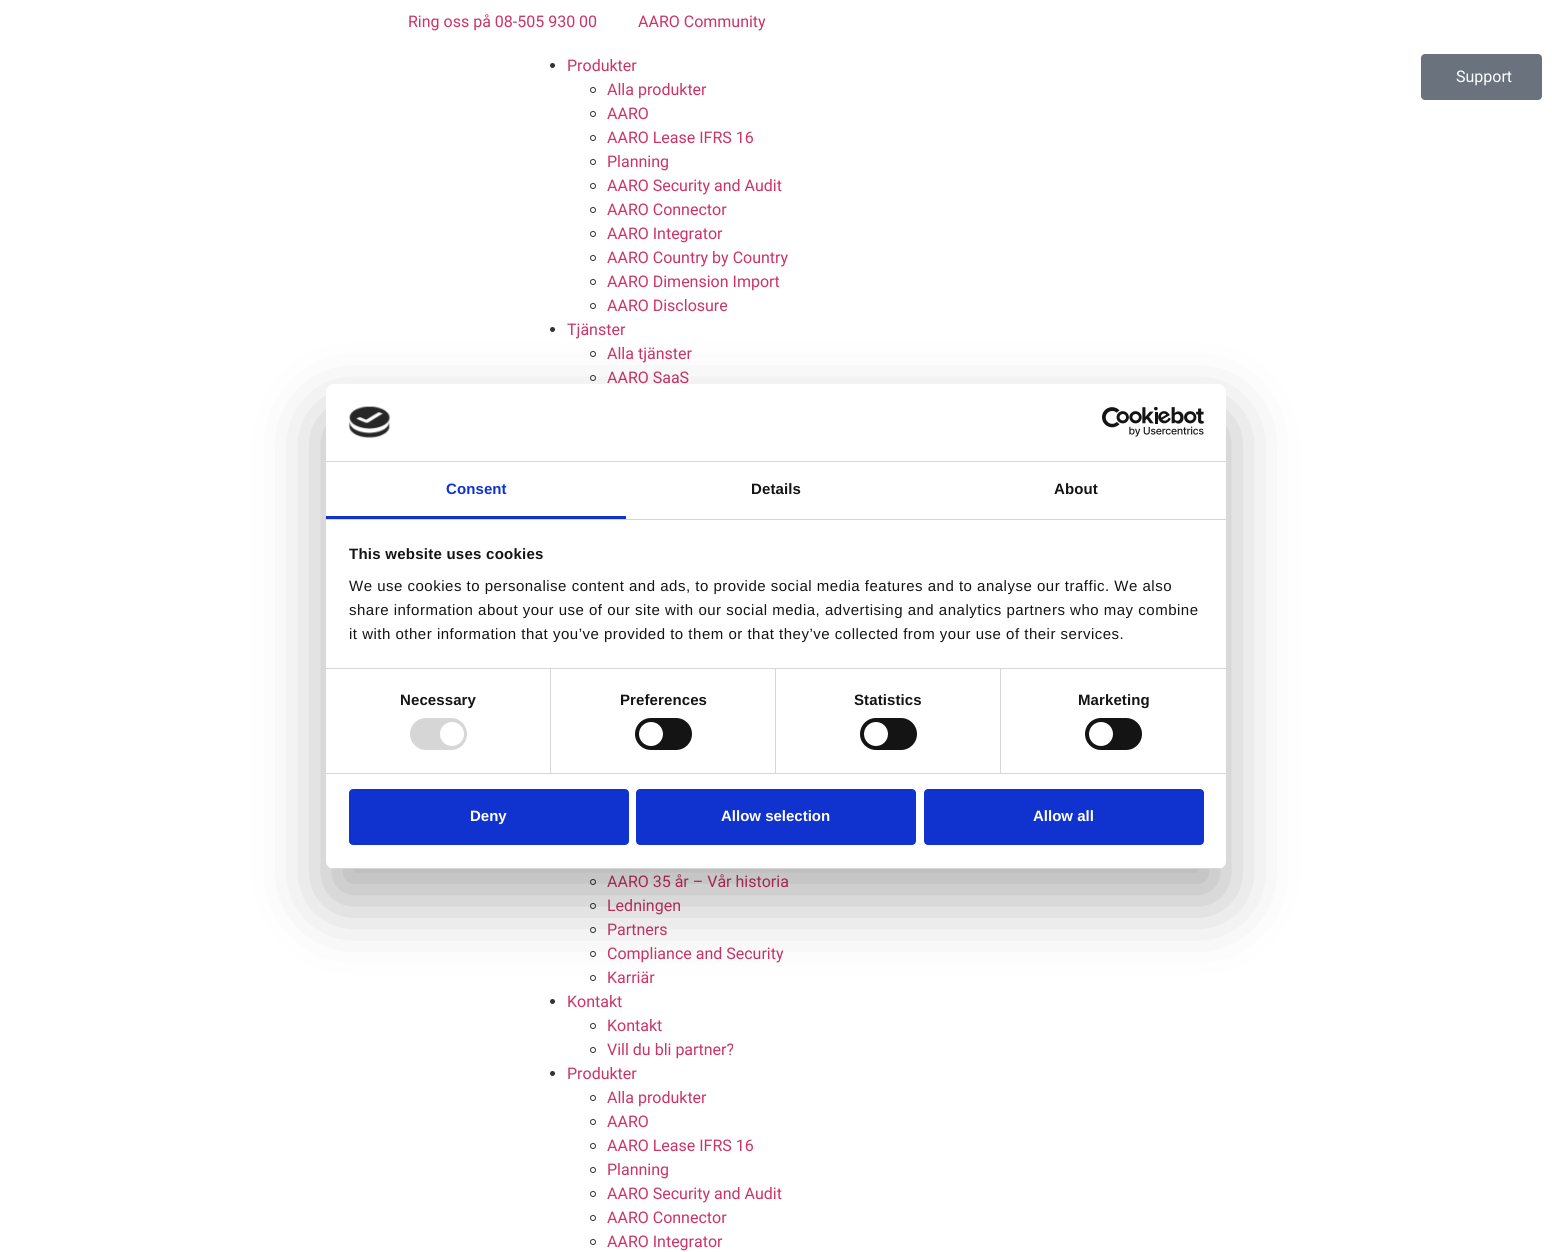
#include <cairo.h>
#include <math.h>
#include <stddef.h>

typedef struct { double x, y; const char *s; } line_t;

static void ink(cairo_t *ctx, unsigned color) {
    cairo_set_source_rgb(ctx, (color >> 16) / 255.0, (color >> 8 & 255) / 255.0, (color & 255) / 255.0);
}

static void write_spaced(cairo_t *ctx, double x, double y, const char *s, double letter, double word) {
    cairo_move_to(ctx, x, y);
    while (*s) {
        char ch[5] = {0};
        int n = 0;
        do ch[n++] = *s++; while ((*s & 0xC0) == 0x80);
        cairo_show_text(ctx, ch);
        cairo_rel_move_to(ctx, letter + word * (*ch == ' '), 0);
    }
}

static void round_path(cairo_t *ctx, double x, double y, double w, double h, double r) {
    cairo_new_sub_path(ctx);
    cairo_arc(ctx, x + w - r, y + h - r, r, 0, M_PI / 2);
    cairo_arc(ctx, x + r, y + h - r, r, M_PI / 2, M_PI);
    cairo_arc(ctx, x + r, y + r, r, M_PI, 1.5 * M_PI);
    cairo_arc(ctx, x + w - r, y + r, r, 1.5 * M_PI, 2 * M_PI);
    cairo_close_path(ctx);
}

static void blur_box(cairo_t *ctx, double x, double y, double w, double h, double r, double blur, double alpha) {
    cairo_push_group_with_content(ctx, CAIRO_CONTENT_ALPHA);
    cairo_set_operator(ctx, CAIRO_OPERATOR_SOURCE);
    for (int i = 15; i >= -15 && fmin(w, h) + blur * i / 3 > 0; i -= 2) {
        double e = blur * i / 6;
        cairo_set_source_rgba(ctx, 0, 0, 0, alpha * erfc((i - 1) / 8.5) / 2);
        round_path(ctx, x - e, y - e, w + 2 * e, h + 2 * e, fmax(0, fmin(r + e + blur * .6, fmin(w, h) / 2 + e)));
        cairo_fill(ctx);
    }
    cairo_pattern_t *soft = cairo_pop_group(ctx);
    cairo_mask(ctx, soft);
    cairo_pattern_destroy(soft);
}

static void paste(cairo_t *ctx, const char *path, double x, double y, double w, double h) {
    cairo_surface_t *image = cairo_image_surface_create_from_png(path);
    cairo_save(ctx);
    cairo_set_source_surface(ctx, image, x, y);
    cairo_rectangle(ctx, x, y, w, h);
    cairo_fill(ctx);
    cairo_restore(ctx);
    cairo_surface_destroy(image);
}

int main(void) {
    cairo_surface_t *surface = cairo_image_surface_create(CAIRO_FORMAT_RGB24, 1552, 1252);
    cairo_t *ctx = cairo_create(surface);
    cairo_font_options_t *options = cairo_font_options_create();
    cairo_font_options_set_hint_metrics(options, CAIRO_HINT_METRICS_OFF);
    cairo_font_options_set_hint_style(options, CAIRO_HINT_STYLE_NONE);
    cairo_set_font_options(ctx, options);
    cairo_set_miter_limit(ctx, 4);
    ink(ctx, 0xFFFFFF);
    cairo_paint(ctx);
    cairo_select_font_face(ctx, "Roboto", CAIRO_FONT_SLANT_NORMAL, CAIRO_FONT_WEIGHT_NORMAL);
    cairo_set_font_size(ctx, 16);
    ink(ctx, 0xCC3366);
    cairo_move_to(ctx, 408, 27);
    cairo_show_text(ctx, "Ring oss på 08-505 930 00");
    cairo_move_to(ctx, 638, 27);
    cairo_show_text(ctx, "AARO Community");
    ink(ctx, 0x333333);
    cairo_new_path(ctx);
    cairo_arc(ctx, 552.5, 65.5, 2.5, 0, 2 * M_PI);
    cairo_fill(ctx);
    ink(ctx, 0xCC3366);
    cairo_move_to(ctx, 567, 71);
    cairo_show_text(ctx, "Produkter");
    cairo_new_path(ctx);
    cairo_arc(ctx, 593, 90, 2.5, 0, 2 * M_PI);
    ink(ctx, 0x333333);
    cairo_set_line_width(ctx, 1);
    cairo_stroke(ctx);
    ink(ctx, 0xCC3366);
    cairo_move_to(ctx, 607, 95);
    cairo_show_text(ctx, "Alla produkter");
    cairo_new_path(ctx);
    cairo_arc(ctx, 593, 114, 2.5, 0, 2 * M_PI);
    ink(ctx, 0x333333);
    cairo_stroke(ctx);
    ink(ctx, 0xCC3366);
    cairo_move_to(ctx, 607, 119);
    cairo_show_text(ctx, "AARO");
    cairo_new_path(ctx);
    cairo_arc(ctx, 593, 138, 2.5, 0, 2 * M_PI);
    ink(ctx, 0x333333);
    cairo_stroke(ctx);
    ink(ctx, 0xCC3366);
    cairo_move_to(ctx, 607, 143);
    cairo_show_text(ctx, "AARO Lease IFRS 16");
    cairo_new_path(ctx);
    cairo_arc(ctx, 593, 162, 2.5, 0, 2 * M_PI);
    ink(ctx, 0x333333);
    cairo_stroke(ctx);
    ink(ctx, 0xCC3366);
    cairo_move_to(ctx, 607, 167);
    cairo_show_text(ctx, "Planning");
    cairo_new_path(ctx);
    cairo_arc(ctx, 593, 186, 2.5, 0, 2 * M_PI);
    ink(ctx, 0x333333);
    cairo_stroke(ctx);
    ink(ctx, 0xCC3366);
    cairo_move_to(ctx, 607, 191);
    cairo_show_text(ctx, "AARO Security and Audit");
    cairo_new_path(ctx);
    cairo_arc(ctx, 593, 210, 2.5, 0, 2 * M_PI);
    ink(ctx, 0x333333);
    cairo_stroke(ctx);
    ink(ctx, 0xCC3366);
    cairo_move_to(ctx, 607, 215);
    cairo_show_text(ctx, "AARO Connector");
    cairo_new_path(ctx);
    cairo_arc(ctx, 593, 234, 2.5, 0, 2 * M_PI);
    ink(ctx, 0x333333);
    cairo_stroke(ctx);
    ink(ctx, 0xCC3366);
    cairo_move_to(ctx, 607, 239);
    cairo_show_text(ctx, "AARO Integrator");
    cairo_new_path(ctx);
    cairo_arc(ctx, 593, 258, 2.5, 0, 2 * M_PI);
    ink(ctx, 0x333333);
    cairo_stroke(ctx);
    ink(ctx, 0xCC3366);
    cairo_move_to(ctx, 607, 263);
    cairo_show_text(ctx, "AARO Country by Country");
    cairo_new_path(ctx);
    cairo_arc(ctx, 593, 282, 2.5, 0, 2 * M_PI);
    ink(ctx, 0x333333);
    cairo_stroke(ctx);
    ink(ctx, 0xCC3366);
    cairo_move_to(ctx, 607, 287);
    cairo_show_text(ctx, "AARO Dimension Import");
    cairo_new_path(ctx);
    cairo_arc(ctx, 593, 306, 2.5, 0, 2 * M_PI);
    ink(ctx, 0x333333);
    cairo_stroke(ctx);
    ink(ctx, 0xCC3366);
    cairo_move_to(ctx, 607, 311);
    cairo_show_text(ctx, "AARO Disclosure");
    ink(ctx, 0x333333);
    cairo_new_path(ctx);
    cairo_arc(ctx, 552.5, 329.5, 2.5, 0, 2 * M_PI);
    cairo_fill(ctx);
    ink(ctx, 0xCC3366);
    cairo_move_to(ctx, 567, 335);
    cairo_show_text(ctx, "Tjänster");
    cairo_new_path(ctx);
    cairo_arc(ctx, 593, 354, 2.5, 0, 2 * M_PI);
    ink(ctx, 0x333333);
    cairo_stroke(ctx);
    ink(ctx, 0xCC3366);
    cairo_move_to(ctx, 607, 359);
    cairo_show_text(ctx, "Alla tjänster");
    cairo_new_path(ctx);
    cairo_arc(ctx, 593, 378, 2.5, 0, 2 * M_PI);
    ink(ctx, 0x333333);
    cairo_stroke(ctx);
    ink(ctx, 0xCC3366);
    cairo_move_to(ctx, 607, 383);
    cairo_show_text(ctx, "AARO SaaS");
    cairo_new_path(ctx);
    cairo_arc(ctx, 593, 882, 2.5, 0, 2 * M_PI);
    ink(ctx, 0x333333);
    cairo_stroke(ctx);
    ink(ctx, 0xCC3366);
    cairo_move_to(ctx, 607, 887);
    cairo_show_text(ctx, "AARO 35 år – Vår historia");
    cairo_new_path(ctx);
    cairo_arc(ctx, 593, 906, 2.5, 0, 2 * M_PI);
    ink(ctx, 0x333333);
    cairo_stroke(ctx);
    ink(ctx, 0xCC3366);
    cairo_move_to(ctx, 607, 911);
    cairo_show_text(ctx, "Ledningen");
    cairo_new_path(ctx);
    cairo_arc(ctx, 593, 930, 2.5, 0, 2 * M_PI);
    ink(ctx, 0x333333);
    cairo_stroke(ctx);
    ink(ctx, 0xCC3366);
    cairo_move_to(ctx, 607, 935);
    cairo_show_text(ctx, "Partners");
    cairo_new_path(ctx);
    cairo_arc(ctx, 593, 954, 2.5, 0, 2 * M_PI);
    ink(ctx, 0x333333);
    cairo_stroke(ctx);
    ink(ctx, 0xCC3366);
    cairo_move_to(ctx, 607, 959);
    cairo_show_text(ctx, "Compliance and Security");
    cairo_new_path(ctx);
    cairo_arc(ctx, 593, 978, 2.5, 0, 2 * M_PI);
    ink(ctx, 0x333333);
    cairo_stroke(ctx);
    ink(ctx, 0xCC3366);
    cairo_move_to(ctx, 607, 983);
    cairo_show_text(ctx, "Karriär");
    ink(ctx, 0x333333);
    cairo_new_path(ctx);
    cairo_arc(ctx, 552.5, 1001.5, 2.5, 0, 2 * M_PI);
    cairo_fill(ctx);
    ink(ctx, 0xCC3366);
    cairo_move_to(ctx, 567, 1007);
    cairo_show_text(ctx, "Kontakt");
    cairo_new_path(ctx);
    cairo_arc(ctx, 593, 1026, 2.5, 0, 2 * M_PI);
    ink(ctx, 0x333333);
    cairo_stroke(ctx);
    ink(ctx, 0xCC3366);
    cairo_move_to(ctx, 607, 1031);
    cairo_show_text(ctx, "Kontakt");
    cairo_new_path(ctx);
    cairo_arc(ctx, 593, 1050, 2.5, 0, 2 * M_PI);
    ink(ctx, 0x333333);
    cairo_stroke(ctx);
    ink(ctx, 0xCC3366);
    cairo_move_to(ctx, 607, 1055);
    cairo_show_text(ctx, "Vill du bli partner?");
    ink(ctx, 0x333333);
    cairo_new_path(ctx);
    cairo_arc(ctx, 552.5, 1073.5, 2.5, 0, 2 * M_PI);
    cairo_fill(ctx);
    ink(ctx, 0xCC3366);
    cairo_move_to(ctx, 567, 1079);
    cairo_show_text(ctx, "Produkter");
    cairo_new_path(ctx);
    cairo_arc(ctx, 593, 1098, 2.5, 0, 2 * M_PI);
    ink(ctx, 0x333333);
    cairo_stroke(ctx);
    ink(ctx, 0xCC3366);
    cairo_move_to(ctx, 607, 1103);
    cairo_show_text(ctx, "Alla produkter");
    cairo_new_path(ctx);
    cairo_arc(ctx, 593, 1122, 2.5, 0, 2 * M_PI);
    ink(ctx, 0x333333);
    cairo_stroke(ctx);
    ink(ctx, 0xCC3366);
    cairo_move_to(ctx, 607, 1127);
    cairo_show_text(ctx, "AARO");
    cairo_new_path(ctx);
    cairo_arc(ctx, 593, 1146, 2.5, 0, 2 * M_PI);
    ink(ctx, 0x333333);
    cairo_stroke(ctx);
    ink(ctx, 0xCC3366);
    cairo_move_to(ctx, 607, 1151);
    cairo_show_text(ctx, "AARO Lease IFRS 16");
    cairo_new_path(ctx);
    cairo_arc(ctx, 593, 1170, 2.5, 0, 2 * M_PI);
    ink(ctx, 0x333333);
    cairo_stroke(ctx);
    ink(ctx, 0xCC3366);
    cairo_move_to(ctx, 607, 1175);
    cairo_show_text(ctx, "Planning");
    cairo_new_path(ctx);
    cairo_arc(ctx, 593, 1194, 2.5, 0, 2 * M_PI);
    ink(ctx, 0x333333);
    cairo_stroke(ctx);
    ink(ctx, 0xCC3366);
    cairo_move_to(ctx, 607, 1199);
    cairo_show_text(ctx, "AARO Security and Audit");
    cairo_new_path(ctx);
    cairo_arc(ctx, 593, 1218, 2.5, 0, 2 * M_PI);
    ink(ctx, 0x333333);
    cairo_stroke(ctx);
    ink(ctx, 0xCC3366);
    cairo_move_to(ctx, 607, 1223);
    cairo_show_text(ctx, "AARO Connector");
    cairo_new_path(ctx);
    cairo_arc(ctx, 593, 1242, 2.5, 0, 2 * M_PI);
    ink(ctx, 0x333333);
    cairo_stroke(ctx);
    ink(ctx, 0xCC3366);
    cairo_move_to(ctx, 607, 1247);
    cairo_show_text(ctx, "AARO Integrator");
    ink(ctx, 0x69727D);
    round_path(ctx, 1421, 54, 121, 46, 4);
    cairo_fill(ctx);
    ink(ctx, 0xFFFFFF);
    cairo_move_to(ctx, 1456, 82);
    cairo_show_text(ctx, "Support");
    ink(ctx, 0x000000);
    blur_box(ctx, 326, 416, 900, 485, 8, 34, 0.3);
    ink(ctx, 0xFFFFFF);
    round_path(ctx, 326, 384, 900, 485, 8);
    cairo_fill(ctx);
    ink(ctx, 0xD6D6D6);
    cairo_rectangle(ctx, 326, 461, 900, 1);
    cairo_fill(ctx);
    paste(ctx, "media/1.png", 348, 406, 43, 33);
    paste(ctx, "media/2.png", 1102, 407, 102, 30);
    cairo_rectangle(ctx, 326, 519, 900, 1);
    cairo_fill(ctx);
    ink(ctx, 0x1032CF);
    cairo_rectangle(ctx, 326, 516, 300, 3);
    cairo_fill(ctx);
    cairo_select_font_face(ctx, "Liberation Sans", CAIRO_FONT_SLANT_NORMAL, CAIRO_FONT_WEIGHT_BOLD);
    cairo_set_font_size(ctx, 15);
    write_spaced(ctx, 446, 494, "Consent", 0.1, 0);
    ink(ctx, 0x141414);
    write_spaced(ctx, 751, 494, "Details", 0.1, 0);
    write_spaced(ctx, 1054, 494, "About", 0.1, 0);
    ink(ctx, 0xD6D6D6);
    cairo_rectangle(ctx, 326, 668, 900, 1);
    cairo_fill(ctx);
    ink(ctx, 0x141414);
    write_spaced(ctx, 349, 559, "This website uses cookies", 0.25, 0);
    cairo_select_font_face(ctx, "Liberation Sans", CAIRO_FONT_SLANT_NORMAL, CAIRO_FONT_WEIGHT_NORMAL);
    {
        static const line_t items[] = {
            {349, 591, "We use cookies to personalise content and ads, to provide social media features and to analyse our traffic. We also"},
            {349, 615, "share information about your use of our site with our social media, advertising and analytics partners who may combine"},
            {349, 639, "it with other information that you’ve provided to them or that they’ve collected from your use of their services."},
        };
        for (size_t i = 0; i < sizeof items / sizeof *items; i++) {
            write_spaced(ctx, items[i].x, items[i].y, items[i].s, 0.5, 0);
        }
    }
    ink(ctx, 0xD6D6D6);
    cairo_rectangle(ctx, 326, 773, 900, 1);
    cairo_fill(ctx);
    cairo_rectangle(ctx, 550, 669, 1, 104);
    cairo_fill(ctx);
    cairo_select_font_face(ctx, "Liberation Sans", CAIRO_FONT_SLANT_NORMAL, CAIRO_FONT_WEIGHT_BOLD);
    ink(ctx, 0x141414);
    write_spaced(ctx, 400, 705, "Necessary", 0.1, 0);
    ink(ctx, 0xD6D6D6);
    round_path(ctx, 410, 718, 57, 32, 16);
    cairo_fill(ctx);
    ink(ctx, 0xFFFFFF);
    cairo_arc(ctx, 452, 734, 12, 0, 2 * M_PI);
    cairo_fill(ctx);
    ink(ctx, 0xD6D6D6);
    cairo_rectangle(ctx, 775, 669, 1, 104);
    cairo_fill(ctx);
    ink(ctx, 0x141414);
    write_spaced(ctx, 620, 705, "Preferences", 0.1, 0);
    round_path(ctx, 635, 718, 57, 32, 16);
    cairo_fill(ctx);
    ink(ctx, 0xFFFFFF);
    cairo_arc(ctx, 651, 734, 12, 0, 2 * M_PI);
    cairo_fill(ctx);
    ink(ctx, 0xD6D6D6);
    cairo_rectangle(ctx, 1000, 669, 1, 104);
    cairo_fill(ctx);
    ink(ctx, 0x141414);
    write_spaced(ctx, 854, 705, "Statistics", 0.1, 0);
    round_path(ctx, 860, 718, 57, 32, 16);
    cairo_fill(ctx);
    ink(ctx, 0xFFFFFF);
    cairo_arc(ctx, 876, 734, 12, 0, 2 * M_PI);
    cairo_fill(ctx);
    ink(ctx, 0x141414);
    write_spaced(ctx, 1078, 705, "Marketing", 0.1, 0);
    round_path(ctx, 1085, 718, 57, 32, 16);
    cairo_fill(ctx);
    ink(ctx, 0xFFFFFF);
    cairo_arc(ctx, 1101, 734, 12, 0, 2 * M_PI);
    cairo_fill(ctx);
    cairo_save(ctx);
    round_path(ctx, 326, 384, 900, 485, 8);
    cairo_clip(ctx);
    ink(ctx, 0xD6D6D6);
    cairo_rectangle(ctx, 326, 868, 900, 1);
    cairo_fill(ctx);
    cairo_restore(ctx);
    ink(ctx, 0x1032CF);
    round_path(ctx, 350, 790, 278, 54, 3);
    cairo_fill_preserve(ctx);
    cairo_set_line_width(ctx, 2);
    cairo_stroke(ctx);
    ink(ctx, 0xFFFFFF);
    cairo_move_to(ctx, 470, 821);
    cairo_show_text(ctx, "Deny");
    ink(ctx, 0x1032CF);
    round_path(ctx, 637, 790, 278, 54, 3);
    cairo_fill_preserve(ctx);
    cairo_stroke(ctx);
    ink(ctx, 0xFFFFFF);
    cairo_move_to(ctx, 721, 821);
    cairo_show_text(ctx, "Allow selection");
    ink(ctx, 0x1032CF);
    round_path(ctx, 925, 790, 278, 54, 3);
    cairo_fill_preserve(ctx);
    cairo_stroke(ctx);
    ink(ctx, 0xFFFFFF);
    cairo_move_to(ctx, 1033, 821);
    cairo_show_text(ctx, "Allow all");
    cairo_surface_write_to_png(surface, "image.png");
    cairo_font_options_destroy(options);
    cairo_destroy(ctx);
    cairo_surface_destroy(surface);
    return 0;
}
